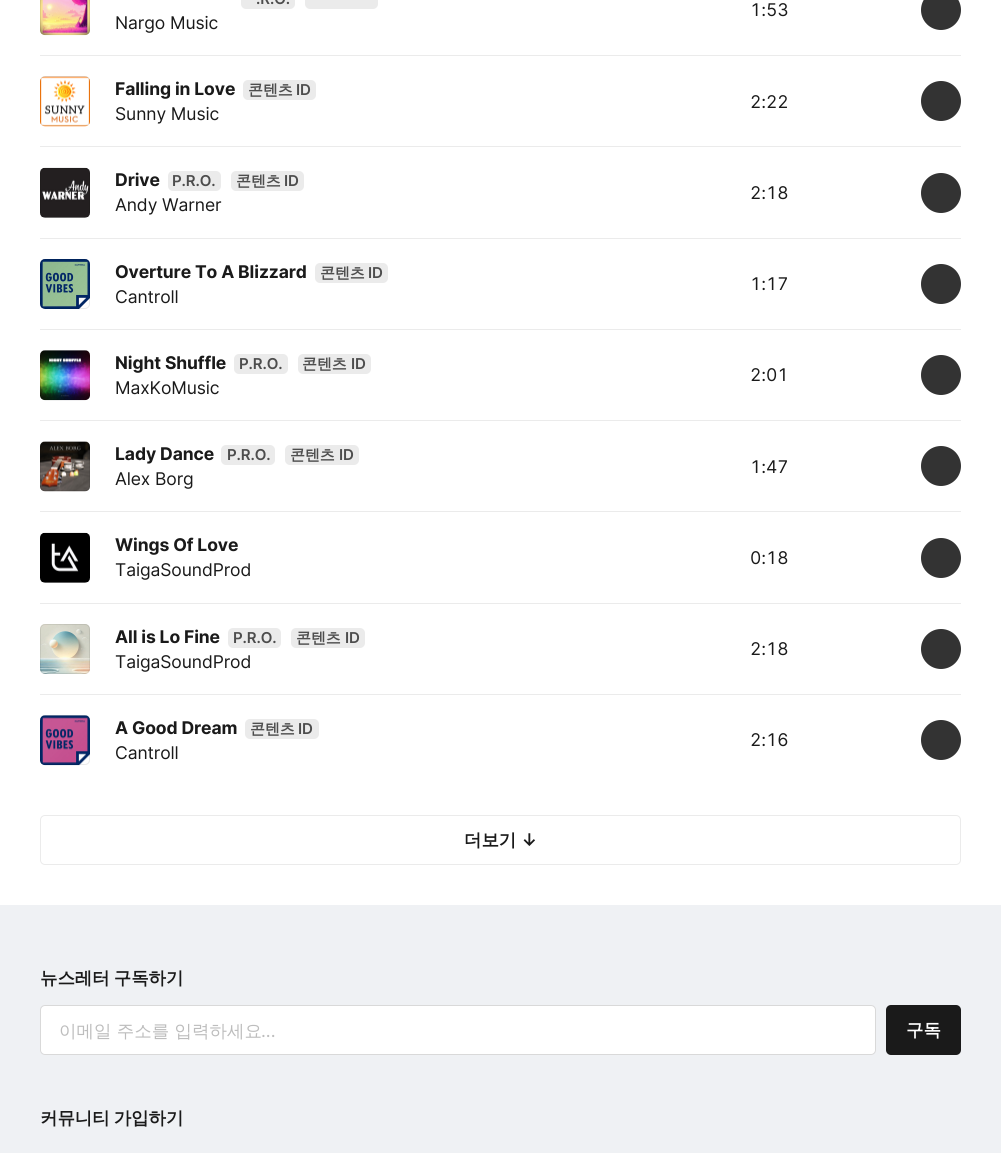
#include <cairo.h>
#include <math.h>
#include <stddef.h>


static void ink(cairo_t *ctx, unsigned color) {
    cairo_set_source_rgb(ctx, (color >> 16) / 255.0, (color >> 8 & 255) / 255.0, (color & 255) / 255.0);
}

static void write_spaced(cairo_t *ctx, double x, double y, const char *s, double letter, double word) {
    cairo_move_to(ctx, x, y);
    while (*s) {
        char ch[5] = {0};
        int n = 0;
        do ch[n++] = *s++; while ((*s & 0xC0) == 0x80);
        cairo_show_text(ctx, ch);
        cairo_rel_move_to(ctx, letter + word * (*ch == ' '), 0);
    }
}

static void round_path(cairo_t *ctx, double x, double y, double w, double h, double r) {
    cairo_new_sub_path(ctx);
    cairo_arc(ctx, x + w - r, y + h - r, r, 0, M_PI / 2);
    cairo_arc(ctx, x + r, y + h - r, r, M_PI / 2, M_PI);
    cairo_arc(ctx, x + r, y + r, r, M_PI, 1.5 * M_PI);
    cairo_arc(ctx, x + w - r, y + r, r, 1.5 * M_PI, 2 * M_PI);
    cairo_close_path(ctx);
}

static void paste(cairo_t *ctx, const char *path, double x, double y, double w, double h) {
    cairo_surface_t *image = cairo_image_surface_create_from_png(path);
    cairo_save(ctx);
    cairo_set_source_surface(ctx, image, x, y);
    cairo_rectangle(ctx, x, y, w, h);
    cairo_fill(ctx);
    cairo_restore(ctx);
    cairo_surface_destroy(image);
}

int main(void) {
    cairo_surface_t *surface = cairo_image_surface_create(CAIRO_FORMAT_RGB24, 1001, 1153);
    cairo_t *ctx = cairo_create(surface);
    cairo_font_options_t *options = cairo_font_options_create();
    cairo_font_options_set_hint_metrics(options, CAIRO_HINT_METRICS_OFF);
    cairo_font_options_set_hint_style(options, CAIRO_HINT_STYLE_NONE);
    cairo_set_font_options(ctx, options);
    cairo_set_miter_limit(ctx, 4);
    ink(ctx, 0xFFFFFF);
    cairo_paint(ctx);
    ink(ctx, 0xEBEBEB);
    cairo_rectangle(ctx, 40, 55, 921, 1);
    cairo_fill(ctx);
    paste(ctx, "media/1.png", 40, 0, 50, 36);
    round_path(ctx, 40.5, -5.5, 49, 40, 4.5);
    cairo_set_source_rgba(ctx, 0, 0, 0, 0.08);
    cairo_set_line_width(ctx, 1);
    cairo_stroke(ctx);
    ink(ctx, 0xEBEBEB);
    round_path(ctx, 241, -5, 54, 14, 5);
    cairo_fill(ctx);
    cairo_select_font_face(ctx, "Inter SemiBold", CAIRO_FONT_SLANT_NORMAL, CAIRO_FONT_WEIGHT_NORMAL);
    cairo_set_font_size(ctx, 15);
    ink(ctx, 0x4D4D4D);
    write_spaced(ctx, 256, 4, ".R.O.", -0.1, 0);
    ink(ctx, 0xEBEBEB);
    round_path(ctx, 305, -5, 73, 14, 5);
    cairo_fill(ctx);
    cairo_select_font_face(ctx, "Inter", CAIRO_FONT_SLANT_NORMAL, CAIRO_FONT_WEIGHT_NORMAL);
    cairo_set_font_size(ctx, 17.5);
    ink(ctx, 0x1A1A1A);
    write_spaced(ctx, 115, 29, "Nargo Music", -0.1, 0);
    cairo_select_font_face(ctx, "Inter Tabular", CAIRO_FONT_SLANT_NORMAL, CAIRO_FONT_WEIGHT_NORMAL);
    write_spaced(ctx, 750, 16, "1:53", -0.1, 0);
    ink(ctx, 0x333333);
    cairo_new_path(ctx);
    cairo_arc(ctx, 941, 10, 20, 0, 2 * M_PI);
    cairo_fill(ctx);
    ink(ctx, 0xEBEBEB);
    cairo_rectangle(ctx, 40, 146, 921, 1);
    cairo_fill(ctx);
    ink(ctx, 0xF2F2F2);
    round_path(ctx, 40, 76, 50, 50, 5);
    cairo_fill(ctx);
    paste(ctx, "media/2.png", 40, 76, 50, 51);
    round_path(ctx, 40.5, 76.5, 49, 49, 4.5);
    cairo_set_source_rgba(ctx, 0, 0, 0, 0.08);
    cairo_stroke(ctx);
    cairo_select_font_face(ctx, "Inter", CAIRO_FONT_SLANT_NORMAL, CAIRO_FONT_WEIGHT_BOLD);
    ink(ctx, 0x1A1A1A);
    write_spaced(ctx, 115, 95, "Falling in Love", -0.1, 0);
    ink(ctx, 0xEBEBEB);
    round_path(ctx, 243, 80, 73, 20, 5);
    cairo_fill(ctx);
    cairo_select_font_face(ctx, "WenQuanYi Zen Hei", CAIRO_FONT_SLANT_NORMAL, CAIRO_FONT_WEIGHT_BOLD);
    cairo_set_font_size(ctx, 15);
    ink(ctx, 0x4D4D4D);
    write_spaced(ctx, 248, 95, "콘텐츠", -0.1, 0);
    cairo_select_font_face(ctx, "Inter SemiBold", CAIRO_FONT_SLANT_NORMAL, CAIRO_FONT_WEIGHT_NORMAL);
    write_spaced(ctx, 296, 95, "ID", -0.1, 0);
    cairo_select_font_face(ctx, "Inter", CAIRO_FONT_SLANT_NORMAL, CAIRO_FONT_WEIGHT_NORMAL);
    cairo_set_font_size(ctx, 17.5);
    ink(ctx, 0x1A1A1A);
    write_spaced(ctx, 115, 120, "Sunny Music", -0.1, 0);
    cairo_select_font_face(ctx, "Inter Tabular", CAIRO_FONT_SLANT_NORMAL, CAIRO_FONT_WEIGHT_NORMAL);
    write_spaced(ctx, 750, 108, "2:22", -0.1, 0);
    ink(ctx, 0x333333);
    cairo_new_path(ctx);
    cairo_arc(ctx, 941, 101, 20, 0, 2 * M_PI);
    cairo_fill(ctx);
    ink(ctx, 0xEBEBEB);
    cairo_rectangle(ctx, 40, 238, 921, 1);
    cairo_fill(ctx);
    ink(ctx, 0xF2F2F2);
    round_path(ctx, 40, 168, 50, 50, 5);
    cairo_fill(ctx);
    paste(ctx, "media/3.png", 40, 167, 50, 51);
    round_path(ctx, 40.5, 168.5, 49, 49, 4.5);
    cairo_set_source_rgba(ctx, 0, 0, 0, 0.08);
    cairo_stroke(ctx);
    cairo_select_font_face(ctx, "Inter", CAIRO_FONT_SLANT_NORMAL, CAIRO_FONT_WEIGHT_BOLD);
    ink(ctx, 0x1A1A1A);
    write_spaced(ctx, 115, 186, "Drive", -0.1, 0);
    ink(ctx, 0xEBEBEB);
    round_path(ctx, 168, 171, 53, 20, 5);
    cairo_fill(ctx);
    cairo_select_font_face(ctx, "Inter SemiBold", CAIRO_FONT_SLANT_NORMAL, CAIRO_FONT_WEIGHT_NORMAL);
    cairo_set_font_size(ctx, 15);
    ink(ctx, 0x4D4D4D);
    write_spaced(ctx, 172, 186, "P.R.O.", -0.1, 0);
    ink(ctx, 0xEBEBEB);
    round_path(ctx, 231, 171, 73, 20, 5);
    cairo_fill(ctx);
    cairo_select_font_face(ctx, "WenQuanYi Zen Hei", CAIRO_FONT_SLANT_NORMAL, CAIRO_FONT_WEIGHT_BOLD);
    ink(ctx, 0x4D4D4D);
    write_spaced(ctx, 236, 186, "콘텐츠", -0.1, 0);
    cairo_select_font_face(ctx, "Inter SemiBold", CAIRO_FONT_SLANT_NORMAL, CAIRO_FONT_WEIGHT_NORMAL);
    write_spaced(ctx, 284, 186, "ID", -0.1, 0);
    cairo_select_font_face(ctx, "Inter", CAIRO_FONT_SLANT_NORMAL, CAIRO_FONT_WEIGHT_NORMAL);
    cairo_set_font_size(ctx, 17.5);
    ink(ctx, 0x1A1A1A);
    write_spaced(ctx, 115, 211, "Andy Warner", -0.1, 0);
    cairo_select_font_face(ctx, "Inter Tabular", CAIRO_FONT_SLANT_NORMAL, CAIRO_FONT_WEIGHT_NORMAL);
    write_spaced(ctx, 750, 199, "2:18", -0.1, 0);
    ink(ctx, 0x333333);
    cairo_new_path(ctx);
    cairo_arc(ctx, 941, 193, 20, 0, 2 * M_PI);
    cairo_fill(ctx);
    ink(ctx, 0xEBEBEB);
    cairo_rectangle(ctx, 40, 329, 921, 1);
    cairo_fill(ctx);
    paste(ctx, "media/4.png", 40, 259, 50, 50);
    round_path(ctx, 40.5, 259.5, 49, 49, 4.5);
    cairo_set_source_rgba(ctx, 0, 0, 0, 0.08);
    cairo_stroke(ctx);
    cairo_select_font_face(ctx, "Inter", CAIRO_FONT_SLANT_NORMAL, CAIRO_FONT_WEIGHT_BOLD);
    ink(ctx, 0x1A1A1A);
    write_spaced(ctx, 115, 278, "Overture To A Blizzard", -0.1, 0);
    ink(ctx, 0xEBEBEB);
    round_path(ctx, 315, 263, 73, 20, 5);
    cairo_fill(ctx);
    cairo_select_font_face(ctx, "WenQuanYi Zen Hei", CAIRO_FONT_SLANT_NORMAL, CAIRO_FONT_WEIGHT_BOLD);
    cairo_set_font_size(ctx, 15);
    ink(ctx, 0x4D4D4D);
    write_spaced(ctx, 320, 278, "콘텐츠", -0.1, 0);
    cairo_select_font_face(ctx, "Inter SemiBold", CAIRO_FONT_SLANT_NORMAL, CAIRO_FONT_WEIGHT_NORMAL);
    write_spaced(ctx, 368, 278, "ID", -0.1, 0);
    cairo_select_font_face(ctx, "Inter", CAIRO_FONT_SLANT_NORMAL, CAIRO_FONT_WEIGHT_NORMAL);
    cairo_set_font_size(ctx, 17.5);
    ink(ctx, 0x1A1A1A);
    write_spaced(ctx, 115, 303, "Cantroll", -0.1, 0);
    cairo_select_font_face(ctx, "Inter Tabular", CAIRO_FONT_SLANT_NORMAL, CAIRO_FONT_WEIGHT_NORMAL);
    write_spaced(ctx, 750, 290, "1:17", -0.1, 0);
    ink(ctx, 0x333333);
    cairo_new_path(ctx);
    cairo_arc(ctx, 941, 284, 20, 0, 2 * M_PI);
    cairo_fill(ctx);
    ink(ctx, 0xEBEBEB);
    cairo_rectangle(ctx, 40, 420, 921, 1);
    cairo_fill(ctx);
    ink(ctx, 0xF2F2F2);
    round_path(ctx, 40, 350, 50, 50, 5);
    cairo_fill(ctx);
    paste(ctx, "media/5.png", 40, 350, 50, 51);
    round_path(ctx, 40.5, 350.5, 49, 49, 4.5);
    cairo_set_source_rgba(ctx, 0, 0, 0, 0.08);
    cairo_stroke(ctx);
    cairo_select_font_face(ctx, "Inter", CAIRO_FONT_SLANT_NORMAL, CAIRO_FONT_WEIGHT_BOLD);
    ink(ctx, 0x1A1A1A);
    write_spaced(ctx, 115, 369, "Night Shuffle", -0.1, 0);
    ink(ctx, 0xEBEBEB);
    round_path(ctx, 234, 354, 54, 20, 5);
    cairo_fill(ctx);
    cairo_select_font_face(ctx, "Inter SemiBold", CAIRO_FONT_SLANT_NORMAL, CAIRO_FONT_WEIGHT_NORMAL);
    cairo_set_font_size(ctx, 15);
    ink(ctx, 0x4D4D4D);
    write_spaced(ctx, 239, 369, "P.R.O.", -0.1, 0);
    ink(ctx, 0xEBEBEB);
    round_path(ctx, 298, 354, 73, 20, 5);
    cairo_fill(ctx);
    cairo_select_font_face(ctx, "WenQuanYi Zen Hei", CAIRO_FONT_SLANT_NORMAL, CAIRO_FONT_WEIGHT_BOLD);
    ink(ctx, 0x4D4D4D);
    write_spaced(ctx, 302, 369, "콘텐츠", -0.1, 0);
    cairo_select_font_face(ctx, "Inter SemiBold", CAIRO_FONT_SLANT_NORMAL, CAIRO_FONT_WEIGHT_NORMAL);
    write_spaced(ctx, 351, 369, "ID", -0.1, 0);
    cairo_select_font_face(ctx, "Inter", CAIRO_FONT_SLANT_NORMAL, CAIRO_FONT_WEIGHT_NORMAL);
    cairo_set_font_size(ctx, 17.5);
    ink(ctx, 0x1A1A1A);
    write_spaced(ctx, 115, 394, "MaxKoMusic", -0.1, 0);
    cairo_select_font_face(ctx, "Inter Tabular", CAIRO_FONT_SLANT_NORMAL, CAIRO_FONT_WEIGHT_NORMAL);
    write_spaced(ctx, 750, 381, "2:01", -0.1, 0);
    ink(ctx, 0x333333);
    cairo_new_path(ctx);
    cairo_arc(ctx, 941, 375, 20, 0, 2 * M_PI);
    cairo_fill(ctx);
    ink(ctx, 0xEBEBEB);
    cairo_rectangle(ctx, 40, 511, 921, 1);
    cairo_fill(ctx);
    ink(ctx, 0xF2F2F2);
    round_path(ctx, 40, 441, 50, 50, 5);
    cairo_fill(ctx);
    paste(ctx, "media/6.png", 40, 441, 50, 51);
    round_path(ctx, 40.5, 441.5, 49, 49, 4.5);
    cairo_set_source_rgba(ctx, 0, 0, 0, 0.08);
    cairo_stroke(ctx);
    cairo_select_font_face(ctx, "Inter", CAIRO_FONT_SLANT_NORMAL, CAIRO_FONT_WEIGHT_BOLD);
    ink(ctx, 0x1A1A1A);
    write_spaced(ctx, 115, 460, "Lady Dance", -0.1, 0);
    ink(ctx, 0xEBEBEB);
    round_path(ctx, 221, 445, 54, 20, 5);
    cairo_fill(ctx);
    cairo_select_font_face(ctx, "Inter SemiBold", CAIRO_FONT_SLANT_NORMAL, CAIRO_FONT_WEIGHT_NORMAL);
    cairo_set_font_size(ctx, 15);
    ink(ctx, 0x4D4D4D);
    write_spaced(ctx, 227, 460, "P.R.O.", -0.1, 0);
    ink(ctx, 0xEBEBEB);
    round_path(ctx, 285, 445, 74, 20, 5);
    cairo_fill(ctx);
    cairo_select_font_face(ctx, "WenQuanYi Zen Hei", CAIRO_FONT_SLANT_NORMAL, CAIRO_FONT_WEIGHT_BOLD);
    ink(ctx, 0x4D4D4D);
    write_spaced(ctx, 290, 460, "콘텐츠", -0.1, 0);
    cairo_select_font_face(ctx, "Inter SemiBold", CAIRO_FONT_SLANT_NORMAL, CAIRO_FONT_WEIGHT_NORMAL);
    write_spaced(ctx, 339, 460, "ID", -0.1, 0);
    cairo_select_font_face(ctx, "Inter", CAIRO_FONT_SLANT_NORMAL, CAIRO_FONT_WEIGHT_NORMAL);
    cairo_set_font_size(ctx, 17.5);
    ink(ctx, 0x1A1A1A);
    write_spaced(ctx, 115, 485, "Alex Borg", -0.1, 0);
    cairo_select_font_face(ctx, "Inter Tabular", CAIRO_FONT_SLANT_NORMAL, CAIRO_FONT_WEIGHT_NORMAL);
    write_spaced(ctx, 750, 473, "1:47", -0.1, 0);
    ink(ctx, 0x333333);
    cairo_new_path(ctx);
    cairo_arc(ctx, 941, 466, 20, 0, 2 * M_PI);
    cairo_fill(ctx);
    ink(ctx, 0xEBEBEB);
    cairo_rectangle(ctx, 40, 603, 921, 1);
    cairo_fill(ctx);
    ink(ctx, 0xF2F2F2);
    round_path(ctx, 40, 533, 50, 50, 5);
    cairo_fill(ctx);
    paste(ctx, "media/7.png", 40, 532, 50, 51);
    round_path(ctx, 40.5, 533.5, 49, 49, 4.5);
    cairo_set_source_rgba(ctx, 0, 0, 0, 0.08);
    cairo_stroke(ctx);
    cairo_select_font_face(ctx, "Inter", CAIRO_FONT_SLANT_NORMAL, CAIRO_FONT_WEIGHT_BOLD);
    ink(ctx, 0x1A1A1A);
    write_spaced(ctx, 115, 551, "Wings Of Love", -0.1, 0);
    cairo_select_font_face(ctx, "Inter", CAIRO_FONT_SLANT_NORMAL, CAIRO_FONT_WEIGHT_NORMAL);
    write_spaced(ctx, 115, 576, "TaigaSoundProd", -0.1, 0);
    cairo_select_font_face(ctx, "Inter Tabular", CAIRO_FONT_SLANT_NORMAL, CAIRO_FONT_WEIGHT_NORMAL);
    write_spaced(ctx, 750, 564, "0:18", -0.1, 0);
    ink(ctx, 0x333333);
    cairo_new_path(ctx);
    cairo_arc(ctx, 941, 558, 20, 0, 2 * M_PI);
    cairo_fill(ctx);
    ink(ctx, 0xEBEBEB);
    cairo_rectangle(ctx, 40, 694, 921, 1);
    cairo_fill(ctx);
    paste(ctx, "media/8.png", 40, 624, 50, 50);
    round_path(ctx, 40.5, 624.5, 49, 49, 4.5);
    cairo_set_source_rgba(ctx, 0, 0, 0, 0.08);
    cairo_stroke(ctx);
    cairo_select_font_face(ctx, "Inter", CAIRO_FONT_SLANT_NORMAL, CAIRO_FONT_WEIGHT_BOLD);
    ink(ctx, 0x1A1A1A);
    write_spaced(ctx, 115, 643, "All is Lo Fine", -0.1, 0);
    ink(ctx, 0xEBEBEB);
    round_path(ctx, 228, 628, 53, 20, 5);
    cairo_fill(ctx);
    cairo_select_font_face(ctx, "Inter SemiBold", CAIRO_FONT_SLANT_NORMAL, CAIRO_FONT_WEIGHT_NORMAL);
    cairo_set_font_size(ctx, 15);
    ink(ctx, 0x4D4D4D);
    write_spaced(ctx, 233, 643, "P.R.O.", -0.1, 0);
    ink(ctx, 0xEBEBEB);
    round_path(ctx, 291, 628, 74, 20, 5);
    cairo_fill(ctx);
    cairo_select_font_face(ctx, "WenQuanYi Zen Hei", CAIRO_FONT_SLANT_NORMAL, CAIRO_FONT_WEIGHT_BOLD);
    ink(ctx, 0x4D4D4D);
    write_spaced(ctx, 296, 643, "콘텐츠", -0.1, 0);
    cairo_select_font_face(ctx, "Inter SemiBold", CAIRO_FONT_SLANT_NORMAL, CAIRO_FONT_WEIGHT_NORMAL);
    write_spaced(ctx, 345, 643, "ID", -0.1, 0);
    cairo_select_font_face(ctx, "Inter", CAIRO_FONT_SLANT_NORMAL, CAIRO_FONT_WEIGHT_NORMAL);
    cairo_set_font_size(ctx, 17.5);
    ink(ctx, 0x1A1A1A);
    write_spaced(ctx, 115, 668, "TaigaSoundProd", -0.1, 0);
    cairo_select_font_face(ctx, "Inter Tabular", CAIRO_FONT_SLANT_NORMAL, CAIRO_FONT_WEIGHT_NORMAL);
    write_spaced(ctx, 750, 655, "2:18", -0.1, 0);
    ink(ctx, 0x333333);
    cairo_new_path(ctx);
    cairo_arc(ctx, 941, 649, 20, 0, 2 * M_PI);
    cairo_fill(ctx);
    ink(ctx, 0xF2F2F2);
    round_path(ctx, 40, 715, 50, 50, 5);
    cairo_fill(ctx);
    paste(ctx, "media/9.png", 40, 715, 50, 51);
    round_path(ctx, 40.5, 715.5, 49, 49, 4.5);
    cairo_set_source_rgba(ctx, 0, 0, 0, 0.08);
    cairo_stroke(ctx);
    cairo_select_font_face(ctx, "Inter", CAIRO_FONT_SLANT_NORMAL, CAIRO_FONT_WEIGHT_BOLD);
    ink(ctx, 0x1A1A1A);
    write_spaced(ctx, 115, 734, "A Good Dream", -0.1, 0);
    ink(ctx, 0xEBEBEB);
    round_path(ctx, 245, 719, 74, 20, 5);
    cairo_fill(ctx);
    cairo_select_font_face(ctx, "WenQuanYi Zen Hei", CAIRO_FONT_SLANT_NORMAL, CAIRO_FONT_WEIGHT_BOLD);
    cairo_set_font_size(ctx, 15);
    ink(ctx, 0x4D4D4D);
    write_spaced(ctx, 250, 734, "콘텐츠", -0.1, 0);
    cairo_select_font_face(ctx, "Inter SemiBold", CAIRO_FONT_SLANT_NORMAL, CAIRO_FONT_WEIGHT_NORMAL);
    write_spaced(ctx, 298, 734, "ID", -0.1, 0);
    cairo_select_font_face(ctx, "Inter", CAIRO_FONT_SLANT_NORMAL, CAIRO_FONT_WEIGHT_NORMAL);
    cairo_set_font_size(ctx, 17.5);
    ink(ctx, 0x1A1A1A);
    write_spaced(ctx, 115, 759, "Cantroll", -0.1, 0);
    cairo_select_font_face(ctx, "Inter Tabular", CAIRO_FONT_SLANT_NORMAL, CAIRO_FONT_WEIGHT_NORMAL);
    write_spaced(ctx, 750, 746, "2:16", -0.1, 0);
    ink(ctx, 0x333333);
    cairo_new_path(ctx);
    cairo_arc(ctx, 941, 740, 20, 0, 2 * M_PI);
    cairo_fill(ctx);
    round_path(ctx, 40.5, 815.5, 920, 49, 4.5);
    ink(ctx, 0xEBEBEB);
    cairo_stroke(ctx);
    cairo_select_font_face(ctx, "WenQuanYi Zen Hei", CAIRO_FONT_SLANT_NORMAL, CAIRO_FONT_WEIGHT_BOLD);
    ink(ctx, 0x1A1A1A);
    write_spaced(ctx, 464, 846, "더보기", -0.1, 0);
    cairo_select_font_face(ctx, "Inter SemiBold", CAIRO_FONT_SLANT_NORMAL, CAIRO_FONT_WEIGHT_NORMAL);
    write_spaced(ctx, 521, 846, "↓", -0.1, 0);
    ink(ctx, 0xEFF1F4);
    cairo_rectangle(ctx, 0, 905, 1001, 248);
    cairo_fill(ctx);
    cairo_select_font_face(ctx, "WenQuanYi Zen Hei", CAIRO_FONT_SLANT_NORMAL, CAIRO_FONT_WEIGHT_BOLD);
    ink(ctx, 0x1A1A1A);
    write_spaced(ctx, 40, 984, "뉴스레터 구독하기", -0.1, -1);
    ink(ctx, 0xFFFFFF);
    round_path(ctx, 40.5, 1005.5, 835, 49, 4.5);
    cairo_fill_preserve(ctx);
    ink(ctx, 0xD9D9D9);
    cairo_stroke(ctx);
    cairo_select_font_face(ctx, "WenQuanYi Zen Hei Medium", CAIRO_FONT_SLANT_NORMAL, CAIRO_FONT_WEIGHT_NORMAL);
    ink(ctx, 0xBDBDBD);
    cairo_move_to(ctx, 59, 1037);
    cairo_show_text(ctx, "이메일 주소를 입력하세요");
    cairo_select_font_face(ctx, "Inter", CAIRO_FONT_SLANT_NORMAL, CAIRO_FONT_WEIGHT_NORMAL);
    cairo_move_to(ctx, 261, 1037);
    cairo_show_text(ctx, "...");
    ink(ctx, 0x1A1A1A);
    round_path(ctx, 886, 1005, 75, 50, 5);
    cairo_fill(ctx);
    cairo_select_font_face(ctx, "WenQuanYi Zen Hei", CAIRO_FONT_SLANT_NORMAL, CAIRO_FONT_WEIGHT_BOLD);
    ink(ctx, 0xFFFFFF);
    write_spaced(ctx, 906, 1036, "구독", -0.1, 0);
    ink(ctx, 0x1A1A1A);
    write_spaced(ctx, 40, 1124, "커뮤니티 가입하기", -0.1, -1);
    cairo_surface_write_to_png(surface, "image.png");
    cairo_font_options_destroy(options);
    cairo_destroy(ctx);
    cairo_surface_destroy(surface);
    return 0;
}
